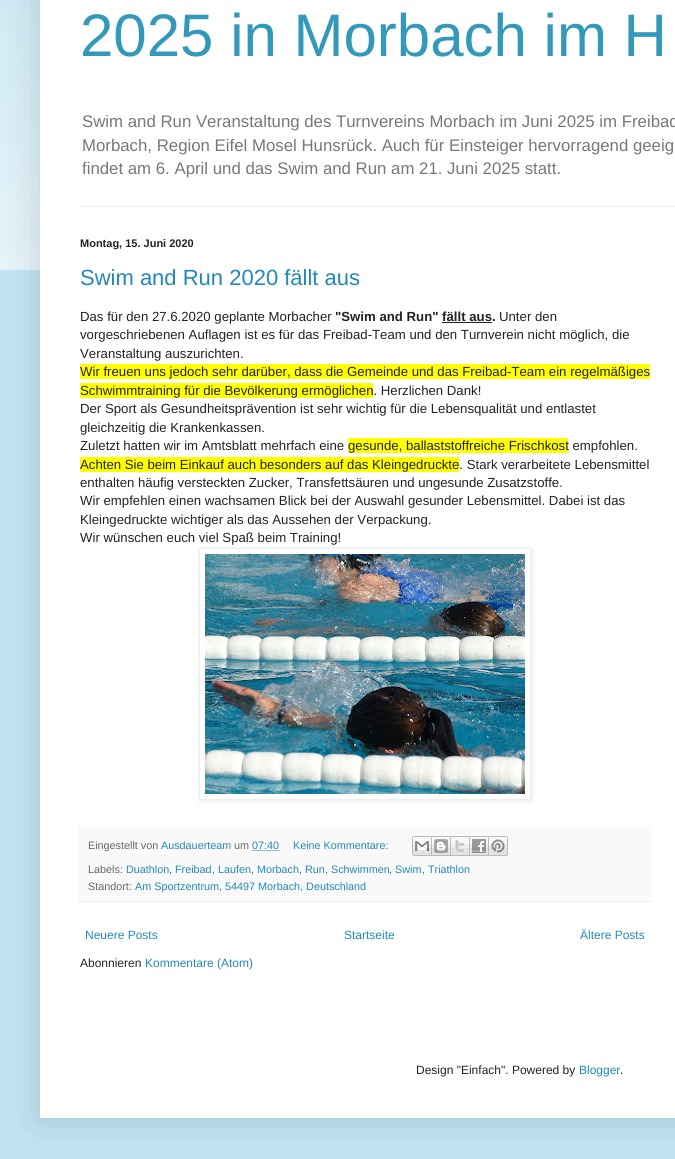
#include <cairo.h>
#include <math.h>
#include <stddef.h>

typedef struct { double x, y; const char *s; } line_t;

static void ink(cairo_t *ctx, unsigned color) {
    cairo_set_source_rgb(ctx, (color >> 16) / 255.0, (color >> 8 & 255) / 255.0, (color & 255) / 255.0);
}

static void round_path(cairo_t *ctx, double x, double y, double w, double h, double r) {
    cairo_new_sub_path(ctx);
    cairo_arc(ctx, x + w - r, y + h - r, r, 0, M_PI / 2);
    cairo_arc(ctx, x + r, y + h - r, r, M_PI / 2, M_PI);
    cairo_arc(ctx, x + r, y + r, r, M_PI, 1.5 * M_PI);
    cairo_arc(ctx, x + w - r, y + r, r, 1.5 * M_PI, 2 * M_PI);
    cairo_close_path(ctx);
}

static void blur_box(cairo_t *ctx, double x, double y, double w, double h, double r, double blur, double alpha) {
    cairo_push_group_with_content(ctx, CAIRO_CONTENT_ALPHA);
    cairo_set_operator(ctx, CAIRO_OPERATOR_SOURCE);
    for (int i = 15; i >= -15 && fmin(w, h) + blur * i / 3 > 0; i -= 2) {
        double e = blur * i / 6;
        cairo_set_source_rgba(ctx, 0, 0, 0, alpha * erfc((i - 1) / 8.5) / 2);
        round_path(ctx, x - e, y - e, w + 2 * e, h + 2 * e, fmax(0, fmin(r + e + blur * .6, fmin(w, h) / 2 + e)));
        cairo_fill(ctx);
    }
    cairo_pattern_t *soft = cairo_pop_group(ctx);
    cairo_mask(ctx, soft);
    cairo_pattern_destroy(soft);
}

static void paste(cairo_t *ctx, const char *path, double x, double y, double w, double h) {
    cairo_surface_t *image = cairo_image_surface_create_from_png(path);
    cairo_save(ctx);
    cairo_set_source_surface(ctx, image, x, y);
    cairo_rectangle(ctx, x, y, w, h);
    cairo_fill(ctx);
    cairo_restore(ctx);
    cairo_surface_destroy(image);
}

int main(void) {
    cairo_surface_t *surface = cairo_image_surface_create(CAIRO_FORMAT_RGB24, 675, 1159);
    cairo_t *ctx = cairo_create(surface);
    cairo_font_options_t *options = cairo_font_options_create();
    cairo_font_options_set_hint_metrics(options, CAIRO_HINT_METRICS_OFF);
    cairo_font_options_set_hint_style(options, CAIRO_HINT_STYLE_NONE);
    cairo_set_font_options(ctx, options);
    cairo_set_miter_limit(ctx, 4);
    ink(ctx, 0xC2E4F2);
    cairo_paint(ctx);
    paste(ctx, "media/1.png", 0, 0, 40, 270);
    ink(ctx, 0x000000);
    blur_box(ctx, 40, -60, 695, 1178, 0, 20, 0.15);
    ink(ctx, 0xFFFFFF);
    cairo_rectangle(ctx, 40, 0, 635, 1118);
    cairo_fill(ctx);
    cairo_select_font_face(ctx, "Liberation Sans", CAIRO_FONT_SLANT_NORMAL, CAIRO_FONT_WEIGHT_NORMAL);
    cairo_set_font_size(ctx, 60);
    ink(ctx, 0x3399BB);
    cairo_move_to(ctx, 80, 56);
    cairo_show_text(ctx, "2025 in Morbach im H");
    cairo_set_font_size(ctx, 16.8);
    ink(ctx, 0x777777);
    {
        static const line_t items[] = {
            {82, 127, "Swim and Run Veranstaltung des Turnvereins Morbach im Juni 2025 im Freibad"},
            {82, 151, "Morbach, Region Eifel Mosel Hunsrück. Auch für Einsteiger hervorragend geeig"},
            {82, 174, "findet am 6. April und das Swim and Run am 21. Juni 2025 statt."},
        };
        for (size_t i = 0; i < sizeof items / sizeof *items; i++) {
            cairo_move_to(ctx, items[i].x, items[i].y);
            cairo_show_text(ctx, items[i].s);
        }
    }
    ink(ctx, 0xEEEEEE);
    cairo_rectangle(ctx, 80, 206, 595, 1);
    cairo_fill(ctx);
    cairo_select_font_face(ctx, "Liberation Sans", CAIRO_FONT_SLANT_NORMAL, CAIRO_FONT_WEIGHT_BOLD);
    cairo_set_font_size(ctx, 11);
    ink(ctx, 0x222222);
    cairo_move_to(ctx, 80, 247);
    cairo_show_text(ctx, "Montag, 15. Juni 2020");
    cairo_select_font_face(ctx, "Liberation Sans", CAIRO_FONT_SLANT_NORMAL, CAIRO_FONT_WEIGHT_NORMAL);
    cairo_set_font_size(ctx, 22);
    ink(ctx, 0x2288BB);
    cairo_move_to(ctx, 80, 285);
    cairo_show_text(ctx, "Swim and Run 2020 fällt aus");
    cairo_set_font_size(ctx, 13.2);
    ink(ctx, 0x222222);
    cairo_move_to(ctx, 80, 321);
    cairo_show_text(ctx, "Das für den 27.6.2020 geplante Morbacher");
    cairo_select_font_face(ctx, "Liberation Sans", CAIRO_FONT_SLANT_NORMAL, CAIRO_FONT_WEIGHT_BOLD);
    cairo_move_to(ctx, 335, 321);
    cairo_show_text(ctx, "\"Swim and Run\" fällt aus.");
    cairo_rectangle(ctx, 442, 322, 50, 1);
    cairo_fill(ctx);
    cairo_select_font_face(ctx, "Liberation Sans", CAIRO_FONT_SLANT_NORMAL, CAIRO_FONT_WEIGHT_NORMAL);
    {
        static const line_t items[] = {
            {499, 321, "Unter den"},
            {80, 339, "vorgeschriebenen Auflagen ist es für das Freibad-Team und den Turnverein nicht möglich, die"},
            {80, 358, "Veranstaltung auszurichten."},
        };
        for (size_t i = 0; i < sizeof items / sizeof *items; i++) {
            cairo_move_to(ctx, items[i].x, items[i].y);
            cairo_show_text(ctx, items[i].s);
        }
    }
    ink(ctx, 0xFFFF00);
    cairo_rectangle(ctx, 80, 364, 570, 15);
    cairo_fill(ctx);
    ink(ctx, 0x222222);
    cairo_move_to(ctx, 80, 376);
    cairo_show_text(ctx, "Wir freuen uns jedoch sehr darüber, dass die Gemeinde und das Freibad-Team ein regelmäßiges");
    ink(ctx, 0xFFFF00);
    cairo_rectangle(ctx, 80, 383, 293, 15);
    cairo_fill(ctx);
    ink(ctx, 0x222222);
    {
        static const line_t items[] = {
            {80, 395, "Schwimmtraining für die Bevölkerung ermöglichen. Herzlichen Dank!"},
            {80, 413, "Der Sport als Gesundheitsprävention ist sehr wichtig für die Lebensqualität und entlastet"},
            {80, 432, "gleichzeitig die Krankenkassen."},
            {80, 450, "Zuletzt hatten wir im Amtsblatt mehrfach eine"},
        };
        for (size_t i = 0; i < sizeof items / sizeof *items; i++) {
            cairo_move_to(ctx, items[i].x, items[i].y);
            cairo_show_text(ctx, items[i].s);
        }
    }
    ink(ctx, 0xFFFF00);
    cairo_rectangle(ctx, 348, 438, 220, 15);
    cairo_fill(ctx);
    ink(ctx, 0x222222);
    cairo_move_to(ctx, 348, 450);
    cairo_show_text(ctx, "gesunde, ballaststoffreiche Frischkost empfohlen.");
    ink(ctx, 0xFFFF00);
    cairo_rectangle(ctx, 80, 457, 379, 15);
    cairo_fill(ctx);
    ink(ctx, 0x222222);
    {
        static const line_t items[] = {
            {80, 469, "Achten Sie beim Einkauf auch besonders auf das Kleingedruckte. Stark verarbeitete Lebensmittel"},
            {80, 487, "enthalten häufig versteckten Zucker, Transfettsäuren und ungesunde Zusatzstoffe."},
            {80, 505, "Wir empfehlen einen wachsamen Blick bei der Auswahl gesunder Lebensmittel. Dabei ist das"},
            {80, 524, "Kleingedruckte wichtiger als das Aussehen der Verpackung."},
            {80, 542, "Wir wünschen euch viel Spaß beim Training!"},
        };
        for (size_t i = 0; i < sizeof items / sizeof *items; i++) {
            cairo_move_to(ctx, items[i].x, items[i].y);
            cairo_show_text(ctx, items[i].s);
        }
    }
    cairo_save(ctx);
    cairo_set_fill_rule(ctx, CAIRO_FILL_RULE_EVEN_ODD);
    cairo_new_path(ctx);
    cairo_move_to(ctx, 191, 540);
    cairo_line_to(ctx, 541, 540);
    cairo_line_to(ctx, 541, 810);
    cairo_line_to(ctx, 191, 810);
    cairo_close_path(ctx);
    cairo_move_to(ctx, 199, 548);
    cairo_line_to(ctx, 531, 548);
    cairo_line_to(ctx, 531, 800);
    cairo_line_to(ctx, 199, 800);
    cairo_close_path(ctx);
    cairo_clip(ctx);
    ink(ctx, 0x000000);
    blur_box(ctx, 200, 549, 332, 252, 0, 2.5, 0.1);
    cairo_restore(ctx);
    cairo_rectangle(ctx, 199.5, 548.5, 331, 251);
    ink(ctx, 0xEEEEEE);
    cairo_set_line_width(ctx, 1);
    cairo_stroke(ctx);
    paste(ctx, "media/2.png", 205, 554, 320, 240);
    ink(ctx, 0xF9F9F9);
    cairo_rectangle(ctx, 78, 825, 574, 76);
    cairo_fill(ctx);
    ink(ctx, 0xEEEEEE);
    cairo_rectangle(ctx, 78, 901, 574, 1);
    cairo_fill(ctx);
    cairo_set_font_size(ctx, 10.8);
    ink(ctx, 0x666666);
    cairo_move_to(ctx, 88, 849);
    cairo_show_text(ctx, "Eingestellt von");
    ink(ctx, 0x2288BB);
    cairo_move_to(ctx, 161, 849);
    cairo_show_text(ctx, "Ausdauerteam");
    ink(ctx, 0x666666);
    cairo_move_to(ctx, 234, 849);
    cairo_show_text(ctx, "um");
    ink(ctx, 0x2288BB);
    cairo_move_to(ctx, 252, 849);
    cairo_show_text(ctx, "07:40");
    cairo_new_path(ctx);
    cairo_move_to(ctx, 252.5, 850.5);
    cairo_line_to(ctx, 279.5, 850.5);
    cairo_set_dash(ctx, (double[]){1, 1}, 2, 0);
    cairo_stroke(ctx);
    cairo_move_to(ctx, 293, 849);
    cairo_show_text(ctx, "Keine Kommentare:");
    paste(ctx, "media/3.png", 412, 836, 20, 20);
    paste(ctx, "media/4.png", 432, 836, 19, 20);
    paste(ctx, "media/5.png", 451, 836, 19, 20);
    paste(ctx, "media/6.png", 470, 836, 19, 20);
    paste(ctx, "media/7.png", 489, 836, 19, 20);
    ink(ctx, 0x666666);
    cairo_move_to(ctx, 88, 873);
    cairo_show_text(ctx, "Labels:");
    ink(ctx, 0x2288BB);
    cairo_move_to(ctx, 126, 873);
    cairo_show_text(ctx, "Duathlon");
    ink(ctx, 0x666666);
    cairo_move_to(ctx, 169, 873);
    cairo_show_text(ctx, ",");
    ink(ctx, 0x2288BB);
    cairo_move_to(ctx, 175, 873);
    cairo_show_text(ctx, "Freibad");
    ink(ctx, 0x666666);
    cairo_move_to(ctx, 212, 873);
    cairo_show_text(ctx, ",");
    ink(ctx, 0x2288BB);
    cairo_move_to(ctx, 218, 873);
    cairo_show_text(ctx, "Laufen");
    ink(ctx, 0x666666);
    cairo_move_to(ctx, 251, 873);
    cairo_show_text(ctx, ",");
    ink(ctx, 0x2288BB);
    cairo_move_to(ctx, 257, 873);
    cairo_show_text(ctx, "Morbach");
    ink(ctx, 0x666666);
    cairo_move_to(ctx, 299, 873);
    cairo_show_text(ctx, ",");
    ink(ctx, 0x2288BB);
    cairo_move_to(ctx, 305, 873);
    cairo_show_text(ctx, "Run");
    ink(ctx, 0x666666);
    cairo_move_to(ctx, 325, 873);
    cairo_show_text(ctx, ",");
    ink(ctx, 0x2288BB);
    cairo_move_to(ctx, 331, 873);
    cairo_show_text(ctx, "Schwimmen");
    ink(ctx, 0x666666);
    cairo_move_to(ctx, 389, 873);
    cairo_show_text(ctx, ",");
    ink(ctx, 0x2288BB);
    cairo_move_to(ctx, 395, 873);
    cairo_show_text(ctx, "Swim");
    ink(ctx, 0x666666);
    cairo_move_to(ctx, 422, 873);
    cairo_show_text(ctx, ",");
    ink(ctx, 0x2288BB);
    cairo_move_to(ctx, 428, 873);
    cairo_show_text(ctx, "Triathlon");
    ink(ctx, 0x666666);
    cairo_move_to(ctx, 88, 890);
    cairo_show_text(ctx, "Standort:");
    ink(ctx, 0x2288BB);
    cairo_move_to(ctx, 135, 890);
    cairo_show_text(ctx, "Am Sportzentrum, 54497 Morbach, Deutschland");
    cairo_set_font_size(ctx, 12);
    {
        static const line_t items[] = {
            {85, 939, "Neuere Posts"},
            {344, 939, "Startseite"},
            {580, 939, "Ältere Posts"},
        };
        for (size_t i = 0; i < sizeof items / sizeof *items; i++) {
            cairo_move_to(ctx, items[i].x, items[i].y);
            cairo_show_text(ctx, items[i].s);
        }
    }
    ink(ctx, 0x222222);
    cairo_move_to(ctx, 80, 967);
    cairo_show_text(ctx, "Abonnieren");
    ink(ctx, 0x2288BB);
    cairo_move_to(ctx, 145, 967);
    cairo_show_text(ctx, "Kommentare (Atom)");
    ink(ctx, 0x222222);
    cairo_move_to(ctx, 416, 1074);
    cairo_show_text(ctx, "Design \"Einfach\". Powered by");
    ink(ctx, 0x2288BB);
    cairo_move_to(ctx, 579, 1074);
    cairo_show_text(ctx, "Blogger");
    ink(ctx, 0x222222);
    cairo_move_to(ctx, 620, 1074);
    cairo_show_text(ctx, ".");
    cairo_surface_write_to_png(surface, "image.png");
    cairo_font_options_destroy(options);
    cairo_destroy(ctx);
    cairo_surface_destroy(surface);
    return 0;
}
